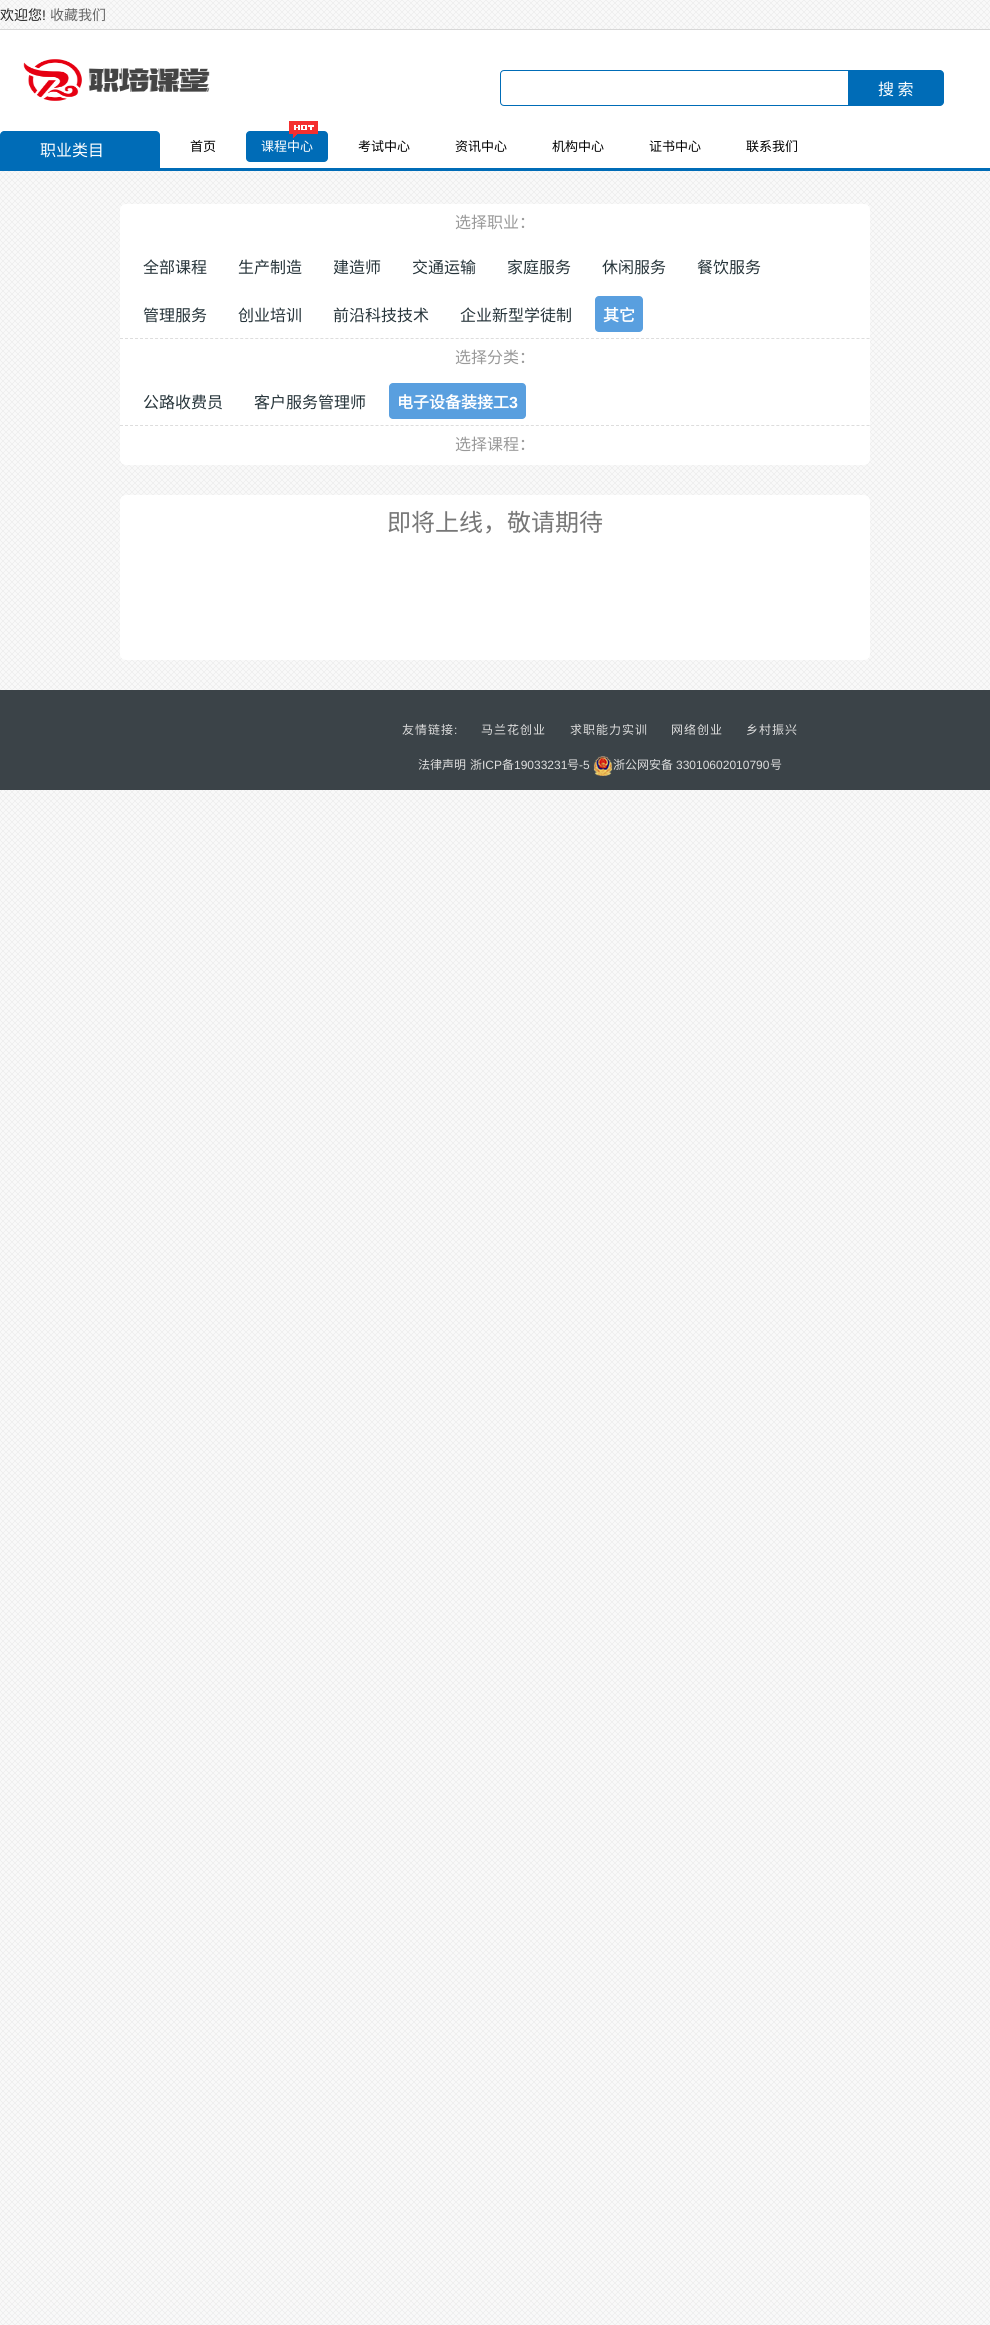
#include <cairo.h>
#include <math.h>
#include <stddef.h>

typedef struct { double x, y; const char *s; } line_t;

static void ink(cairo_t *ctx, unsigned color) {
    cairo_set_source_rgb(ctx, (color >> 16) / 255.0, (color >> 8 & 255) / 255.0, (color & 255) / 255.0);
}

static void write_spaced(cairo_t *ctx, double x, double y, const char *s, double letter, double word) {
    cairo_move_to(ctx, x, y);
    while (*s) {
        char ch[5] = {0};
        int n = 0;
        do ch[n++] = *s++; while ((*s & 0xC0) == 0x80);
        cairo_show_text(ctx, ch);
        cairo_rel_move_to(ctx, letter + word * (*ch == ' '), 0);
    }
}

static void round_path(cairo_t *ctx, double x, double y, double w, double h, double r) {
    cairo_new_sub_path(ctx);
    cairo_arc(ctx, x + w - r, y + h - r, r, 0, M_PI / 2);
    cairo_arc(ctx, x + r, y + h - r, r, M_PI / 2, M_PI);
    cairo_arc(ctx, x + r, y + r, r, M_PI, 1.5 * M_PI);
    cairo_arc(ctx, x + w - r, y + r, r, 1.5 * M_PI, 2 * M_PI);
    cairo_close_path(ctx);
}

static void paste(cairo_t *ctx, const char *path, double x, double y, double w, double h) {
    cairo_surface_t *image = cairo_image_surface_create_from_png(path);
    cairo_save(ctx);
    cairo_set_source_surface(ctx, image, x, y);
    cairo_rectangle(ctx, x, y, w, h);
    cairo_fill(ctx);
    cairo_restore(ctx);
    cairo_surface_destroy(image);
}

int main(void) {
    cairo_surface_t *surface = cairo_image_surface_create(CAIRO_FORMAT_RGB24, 990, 2325);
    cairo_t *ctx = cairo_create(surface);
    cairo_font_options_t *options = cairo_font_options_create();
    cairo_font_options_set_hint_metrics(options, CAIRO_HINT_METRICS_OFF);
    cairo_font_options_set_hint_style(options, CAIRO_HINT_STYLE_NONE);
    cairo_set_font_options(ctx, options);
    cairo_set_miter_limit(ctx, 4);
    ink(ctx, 0xFFFFFF);
    cairo_paint(ctx);
    paste(ctx, "media/1.png", 0, 171, 990, 2154);
    paste(ctx, "media/2.png", 0, 0, 990, 29);
    ink(ctx, 0xD7D7D7);
    cairo_rectangle(ctx, 0, 29, 990, 1);
    cairo_fill(ctx);
    cairo_select_font_face(ctx, "Noto Sans CJK SC", CAIRO_FONT_SLANT_NORMAL, CAIRO_FONT_WEIGHT_NORMAL);
    cairo_set_font_size(ctx, 14);
    ink(ctx, 0x252525);
    cairo_move_to(ctx, 0, 20);
    cairo_show_text(ctx, "欢迎您");
    cairo_select_font_face(ctx, "Liberation Sans", CAIRO_FONT_SLANT_NORMAL, CAIRO_FONT_WEIGHT_NORMAL);
    cairo_move_to(ctx, 42, 20);
    cairo_show_text(ctx, "!");
    cairo_select_font_face(ctx, "Noto Sans CJK SC", CAIRO_FONT_SLANT_NORMAL, CAIRO_FONT_WEIGHT_NORMAL);
    ink(ctx, 0x666666);
    cairo_move_to(ctx, 50, 20);
    cairo_show_text(ctx, "收藏我们");
    paste(ctx, "media/3.png", 23, 59, 187, 42);
    cairo_new_path(ctx);
    cairo_move_to(ctx, 504, 70.5);
    cairo_line_to(ctx, 849.5, 70.5);
    cairo_line_to(ctx, 849.5, 105.5);
    cairo_line_to(ctx, 504, 105.5);
    cairo_curve_to(ctx, 502, 105.5, 500.5, 104, 500.5, 102);
    cairo_line_to(ctx, 500.5, 74);
    cairo_curve_to(ctx, 500.5, 72, 502, 70.5, 504, 70.5);
    cairo_close_path(ctx);
    ink(ctx, 0x006CB7);
    cairo_set_line_width(ctx, 1);
    cairo_stroke(ctx);
    cairo_new_path(ctx);
    cairo_move_to(ctx, 848, 70);
    cairo_line_to(ctx, 940, 70);
    cairo_curve_to(ctx, 942, 70, 944, 72, 944, 74);
    cairo_line_to(ctx, 944, 102);
    cairo_curve_to(ctx, 944, 104, 942, 106, 940, 106);
    cairo_line_to(ctx, 848, 106);
    cairo_close_path(ctx);
    cairo_fill(ctx);
    cairo_set_font_size(ctx, 16);
    ink(ctx, 0xFFFFFF);
    cairo_move_to(ctx, 878, 95);
    cairo_show_text(ctx, "搜 索");
    ink(ctx, 0x006CB7);
    cairo_rectangle(ctx, 160, 168, 830, 3);
    cairo_fill(ctx);
    cairo_new_path(ctx);
    cairo_move_to(ctx, 4, 131);
    cairo_line_to(ctx, 156, 131);
    cairo_curve_to(ctx, 158, 131, 160, 133, 160, 135);
    cairo_line_to(ctx, 160, 171);
    cairo_line_to(ctx, 0, 171);
    cairo_line_to(ctx, 0, 135);
    cairo_curve_to(ctx, 0, 133, 2, 131, 4, 131);
    cairo_close_path(ctx);
    cairo_fill(ctx);
    ink(ctx, 0xFFFFFF);
    cairo_move_to(ctx, 40, 156);
    cairo_show_text(ctx, "职业类目");
    cairo_set_font_size(ctx, 13);
    ink(ctx, 0x000000);
    cairo_move_to(ctx, 190, 151);
    cairo_show_text(ctx, "首页");
    ink(ctx, 0x006CB7);
    round_path(ctx, 246, 131, 82, 31, 4);
    cairo_fill(ctx);
    paste(ctx, "media/4.png", 289, 121, 29, 17);
    ink(ctx, 0xFFFFFF);
    cairo_move_to(ctx, 261, 151);
    cairo_show_text(ctx, "课程中心");
    ink(ctx, 0x000000);
    {
        static const line_t items[] = {
            {358, 151, "考试中心"},
            {455, 151, "资讯中心"},
            {552, 151, "机构中心"},
            {649, 151, "证书中心"},
            {746, 151, "联系我们"},
        };
        for (size_t i = 0; i < sizeof items / sizeof *items; i++) {
            cairo_move_to(ctx, items[i].x, items[i].y);
            cairo_show_text(ctx, items[i].s);
        }
    }
    ink(ctx, 0xFFFFFF);
    round_path(ctx, 120, 204, 750, 261, 6);
    cairo_fill(ctx);
    cairo_set_font_size(ctx, 16);
    ink(ctx, 0x999999);
    cairo_move_to(ctx, 455, 228);
    cairo_show_text(ctx, "选择职业：");
    ink(ctx, 0x26343A);
    {
        static const line_t items[] = {
            {143, 273, "全部课程"},
            {238, 273, "生产制造"},
            {333, 273, "建造师"},
            {412, 273, "交通运输"},
            {507, 273, "家庭服务"},
            {602, 273, "休闲服务"},
            {697, 273, "餐饮服务"},
            {143, 321, "管理服务"},
            {238, 321, "创业培训"},
            {333, 321, "前沿科技技术"},
            {460, 321, "企业新型学徒制"},
        };
        for (size_t i = 0; i < sizeof items / sizeof *items; i++) {
            cairo_move_to(ctx, items[i].x, items[i].y);
            cairo_show_text(ctx, items[i].s);
        }
    }
    ink(ctx, 0x599FDF);
    round_path(ctx, 595, 296, 48, 36, 4);
    cairo_fill(ctx);
    cairo_select_font_face(ctx, "Noto Sans CJK SC", CAIRO_FONT_SLANT_NORMAL, CAIRO_FONT_WEIGHT_BOLD);
    ink(ctx, 0xFFFFFF);
    cairo_move_to(ctx, 603, 321);
    cairo_show_text(ctx, "其它");
    cairo_new_path(ctx);
    cairo_move_to(ctx, 120, 338.5);
    cairo_line_to(ctx, 870, 338.5);
    ink(ctx, 0xDDDDDD);
    cairo_set_dash(ctx, (double[]){3, 2.01}, 2, 0);
    cairo_stroke(ctx);
    cairo_select_font_face(ctx, "Noto Sans CJK SC", CAIRO_FONT_SLANT_NORMAL, CAIRO_FONT_WEIGHT_NORMAL);
    ink(ctx, 0x999999);
    cairo_move_to(ctx, 455, 363);
    cairo_show_text(ctx, "选择分类：");
    ink(ctx, 0x26343A);
    cairo_move_to(ctx, 143, 408);
    cairo_show_text(ctx, "公路收费员");
    cairo_move_to(ctx, 254, 408);
    cairo_show_text(ctx, "客户服务管理师");
    ink(ctx, 0x599FDF);
    round_path(ctx, 389, 383, 137, 36, 4);
    cairo_fill(ctx);
    cairo_select_font_face(ctx, "Noto Sans CJK SC", CAIRO_FONT_SLANT_NORMAL, CAIRO_FONT_WEIGHT_BOLD);
    ink(ctx, 0xFFFFFF);
    cairo_move_to(ctx, 397, 408);
    cairo_show_text(ctx, "电子设备装接工");
    cairo_select_font_face(ctx, "Liberation Sans", CAIRO_FONT_SLANT_NORMAL, CAIRO_FONT_WEIGHT_BOLD);
    cairo_move_to(ctx, 509, 408);
    cairo_show_text(ctx, "3");
    cairo_new_path(ctx);
    cairo_move_to(ctx, 120, 425.5);
    cairo_line_to(ctx, 870, 425.5);
    ink(ctx, 0xDDDDDD);
    cairo_stroke(ctx);
    cairo_select_font_face(ctx, "Noto Sans CJK SC", CAIRO_FONT_SLANT_NORMAL, CAIRO_FONT_WEIGHT_NORMAL);
    ink(ctx, 0x999999);
    cairo_move_to(ctx, 455, 450);
    cairo_show_text(ctx, "选择课程：");
    ink(ctx, 0xFFFFFF);
    round_path(ctx, 120, 495, 750, 165, 6);
    cairo_fill(ctx);
    cairo_set_font_size(ctx, 24);
    ink(ctx, 0x777777);
    cairo_move_to(ctx, 387, 531);
    cairo_show_text(ctx, "即将上线，敬请期待");
    ink(ctx, 0x3B4348);
    cairo_rectangle(ctx, 0, 690, 990, 100);
    cairo_fill(ctx);
    cairo_set_font_size(ctx, 12);
    ink(ctx, 0xDDDDDD);
    write_spaced(ctx, 402, 734, "友情链接", 1, 0);
    cairo_select_font_face(ctx, "Liberation Sans", CAIRO_FONT_SLANT_NORMAL, CAIRO_FONT_WEIGHT_NORMAL);
    write_spaced(ctx, 454, 734, ":", 1, 0);
    cairo_select_font_face(ctx, "Noto Sans CJK SC", CAIRO_FONT_SLANT_NORMAL, CAIRO_FONT_WEIGHT_NORMAL);
    {
        static const line_t items[] = {
            {481, 734, "马兰花创业"},
            {570, 734, "求职能力实训"},
            {671, 734, "网络创业"},
            {746, 734, "乡村振兴"},
        };
        for (size_t i = 0; i < sizeof items / sizeof *items; i++) {
            write_spaced(ctx, items[i].x, items[i].y, items[i].s, 1, 0);
        }
    }
    cairo_move_to(ctx, 418, 769);
    cairo_show_text(ctx, "法律声明");
    cairo_move_to(ctx, 470, 769);
    cairo_show_text(ctx, "浙");
    cairo_select_font_face(ctx, "Liberation Sans", CAIRO_FONT_SLANT_NORMAL, CAIRO_FONT_WEIGHT_NORMAL);
    cairo_move_to(ctx, 482, 769);
    cairo_show_text(ctx, "ICP");
    cairo_select_font_face(ctx, "Noto Sans CJK SC", CAIRO_FONT_SLANT_NORMAL, CAIRO_FONT_WEIGHT_NORMAL);
    cairo_move_to(ctx, 502, 769);
    cairo_show_text(ctx, "备");
    cairo_select_font_face(ctx, "Liberation Sans", CAIRO_FONT_SLANT_NORMAL, CAIRO_FONT_WEIGHT_NORMAL);
    cairo_move_to(ctx, 514, 769);
    cairo_show_text(ctx, "19033231");
    cairo_select_font_face(ctx, "Noto Sans CJK SC", CAIRO_FONT_SLANT_NORMAL, CAIRO_FONT_WEIGHT_NORMAL);
    cairo_move_to(ctx, 567, 769);
    cairo_show_text(ctx, "号");
    cairo_select_font_face(ctx, "Liberation Sans", CAIRO_FONT_SLANT_NORMAL, CAIRO_FONT_WEIGHT_NORMAL);
    cairo_move_to(ctx, 579, 769);
    cairo_show_text(ctx, "-5");
    paste(ctx, "media/5.png", 593, 756, 20, 20);
    cairo_select_font_face(ctx, "Noto Sans CJK SC", CAIRO_FONT_SLANT_NORMAL, CAIRO_FONT_WEIGHT_NORMAL);
    cairo_move_to(ctx, 613, 769);
    cairo_show_text(ctx, "浙公网安备");
    cairo_select_font_face(ctx, "Liberation Sans", CAIRO_FONT_SLANT_NORMAL, CAIRO_FONT_WEIGHT_NORMAL);
    cairo_move_to(ctx, 676, 769);
    cairo_show_text(ctx, "33010602010790");
    cairo_select_font_face(ctx, "Noto Sans CJK SC", CAIRO_FONT_SLANT_NORMAL, CAIRO_FONT_WEIGHT_NORMAL);
    cairo_move_to(ctx, 770, 769);
    cairo_show_text(ctx, "号");
    cairo_surface_write_to_png(surface, "image.png");
    cairo_font_options_destroy(options);
    cairo_destroy(ctx);
    cairo_surface_destroy(surface);
    return 0;
}
